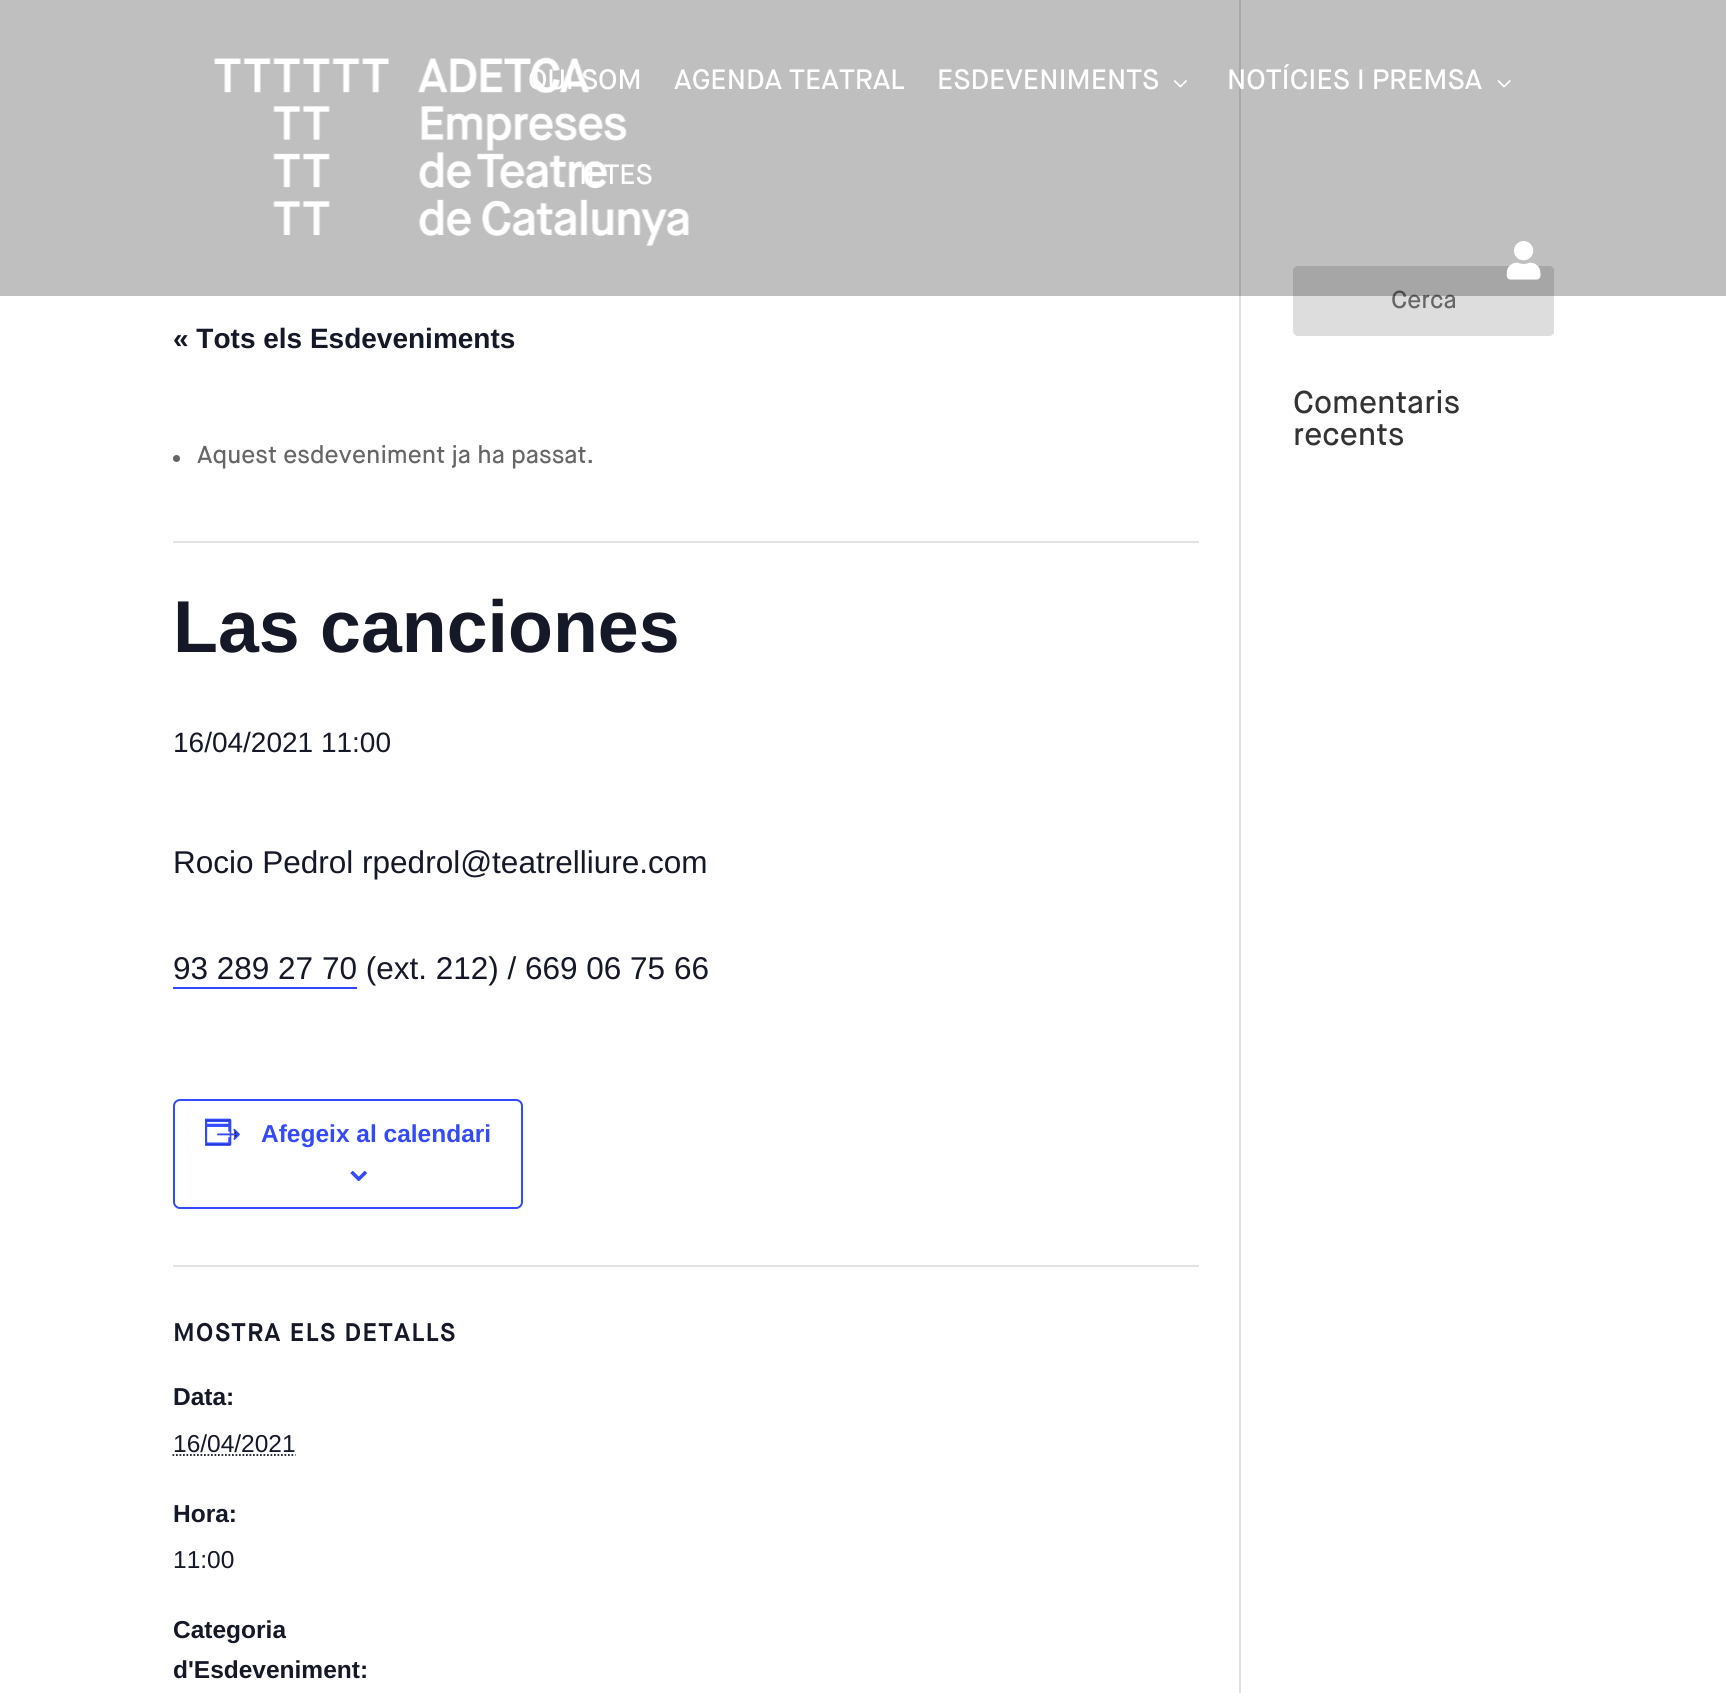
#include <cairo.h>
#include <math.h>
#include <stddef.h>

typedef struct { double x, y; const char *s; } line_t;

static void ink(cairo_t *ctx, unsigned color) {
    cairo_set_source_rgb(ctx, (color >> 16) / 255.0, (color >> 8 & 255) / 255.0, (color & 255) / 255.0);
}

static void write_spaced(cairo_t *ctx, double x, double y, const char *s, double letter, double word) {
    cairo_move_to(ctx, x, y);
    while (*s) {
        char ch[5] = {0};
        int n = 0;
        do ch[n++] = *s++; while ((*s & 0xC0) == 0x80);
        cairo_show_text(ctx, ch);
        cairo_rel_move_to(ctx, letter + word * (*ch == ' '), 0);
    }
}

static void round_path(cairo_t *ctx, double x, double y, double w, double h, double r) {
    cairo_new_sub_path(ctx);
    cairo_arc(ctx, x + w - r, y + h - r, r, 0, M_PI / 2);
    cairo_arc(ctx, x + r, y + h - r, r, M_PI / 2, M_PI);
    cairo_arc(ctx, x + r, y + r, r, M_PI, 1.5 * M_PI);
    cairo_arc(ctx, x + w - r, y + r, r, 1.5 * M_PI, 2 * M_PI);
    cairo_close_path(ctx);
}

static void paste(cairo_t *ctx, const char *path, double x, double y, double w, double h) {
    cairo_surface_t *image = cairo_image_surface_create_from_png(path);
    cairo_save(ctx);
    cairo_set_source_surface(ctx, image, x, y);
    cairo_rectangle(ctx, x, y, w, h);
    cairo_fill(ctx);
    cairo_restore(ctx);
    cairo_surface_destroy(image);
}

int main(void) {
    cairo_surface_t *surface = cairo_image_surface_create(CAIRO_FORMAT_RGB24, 1726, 1693);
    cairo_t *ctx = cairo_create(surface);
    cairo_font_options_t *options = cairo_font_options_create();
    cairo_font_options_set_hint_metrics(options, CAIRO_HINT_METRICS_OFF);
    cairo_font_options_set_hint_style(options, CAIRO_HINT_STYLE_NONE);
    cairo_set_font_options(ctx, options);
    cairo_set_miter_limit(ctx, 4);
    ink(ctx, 0xFFFFFF);
    cairo_paint(ctx);
    ink(ctx, 0xE2E2E2);
    cairo_rectangle(ctx, 1239, 0, 2, 1693);
    cairo_fill(ctx);
    round_path(ctx, 1294, 267, 259, 68, 4);
    ink(ctx, 0xDDDDDD);
    cairo_stroke(ctx);
    cairo_new_path(ctx);
    cairo_move_to(ctx, 1302, 267);
    cairo_line_to(ctx, 1549, 267);
    cairo_curve_to(ctx, 1551, 267, 1553, 269, 1553, 271);
    cairo_line_to(ctx, 1553, 331);
    cairo_curve_to(ctx, 1553, 333, 1551, 335, 1549, 335);
    cairo_line_to(ctx, 1302, 335);
    cairo_curve_to(ctx, 1297.5, 335, 1294, 331.5, 1294, 327);
    cairo_line_to(ctx, 1294, 275);
    cairo_curve_to(ctx, 1294, 270.5, 1297.5, 267, 1302, 267);
    cairo_close_path(ctx);
    cairo_fill_preserve(ctx);
    cairo_stroke(ctx);
    cairo_select_font_face(ctx, "Maison Neue Medium", CAIRO_FONT_SLANT_NORMAL, CAIRO_FONT_WEIGHT_NORMAL);
    cairo_set_font_size(ctx, 24.5);
    ink(ctx, 0x666666);
    cairo_move_to(ctx, 1391, 308);
    cairo_show_text(ctx, "Cerca");
    cairo_set_source_rgba(ctx, 0, 0, 0, 0.25);
    cairo_rectangle(ctx, 0, 0, 1726, 296);
    cairo_fill(ctx);
    paste(ctx, "media/1.png", 214, 57, 475, 189);
    cairo_set_font_size(ctx, 28);
    ink(ctx, 0xFFFFFF);
    {
        static const line_t items[] = {
            {528, 89, "QUI SOM"},
            {674, 89, "AGENDA TEATRAL"},
            {937, 89, "ESDEVENIMENTS"},
        };
        for (size_t i = 0; i < sizeof items / sizeof *items; i++) {
            cairo_move_to(ctx, items[i].x, items[i].y);
            cairo_show_text(ctx, items[i].s);
        }
    }
    paste(ctx, "media/2.png", 1174, 80, 13, 8);
    cairo_move_to(ctx, 1227, 89);
    cairo_show_text(ctx, "NOTÍCIES I PREMSA");
    paste(ctx, "media/3.png", 1497, 80, 14, 8);
    cairo_move_to(ctx, 579, 184);
    cairo_show_text(ctx, "IETES");
    paste(ctx, "media/4.png", 1506, 241, 35, 39);
    cairo_select_font_face(ctx, "Liberation Sans", CAIRO_FONT_SLANT_NORMAL, CAIRO_FONT_WEIGHT_BOLD);
    ink(ctx, 0x141827);
    cairo_move_to(ctx, 173, 348);
    cairo_show_text(ctx, "« Tots els Esdeveniments");
    ink(ctx, 0xE4E4E4);
    cairo_rectangle(ctx, 173, 541, 1026, 2);
    cairo_fill(ctx);
    ink(ctx, 0x666666);
    cairo_arc(ctx, 176.5, 458.5, 3.5, 0, 2 * M_PI);
    cairo_fill(ctx);
    cairo_select_font_face(ctx, "Maison Neue Medium", CAIRO_FONT_SLANT_NORMAL, CAIRO_FONT_WEIGHT_NORMAL);
    cairo_set_font_size(ctx, 24.5);
    cairo_move_to(ctx, 197, 463);
    cairo_show_text(ctx, "Aquest esdeveniment ja ha passat.");
    cairo_select_font_face(ctx, "Liberation Sans", CAIRO_FONT_SLANT_NORMAL, CAIRO_FONT_WEIGHT_BOLD);
    cairo_set_font_size(ctx, 73.5);
    ink(ctx, 0x141827);
    cairo_move_to(ctx, 173, 652);
    cairo_show_text(ctx, "Las canciones");
    cairo_select_font_face(ctx, "Liberation Sans", CAIRO_FONT_SLANT_NORMAL, CAIRO_FONT_WEIGHT_NORMAL);
    cairo_set_font_size(ctx, 28);
    cairo_move_to(ctx, 173, 752);
    cairo_show_text(ctx, "16/04/2021 11:00");
    cairo_set_font_size(ctx, 31.5);
    cairo_move_to(ctx, 173, 873);
    cairo_show_text(ctx, "Rocio Pedrol rpedrol@teatrelliure.com");
    cairo_move_to(ctx, 173, 979);
    cairo_show_text(ctx, "93 289 27 70 (ext. 212) / 669 06 75 66");
    ink(ctx, 0x334AFF);
    cairo_rectangle(ctx, 173, 987, 184, 2);
    cairo_fill(ctx);
    round_path(ctx, 174, 1100, 348, 108, 6);
    cairo_stroke(ctx);
    paste(ctx, "media/5.png", 205, 1118, 35, 28);
    cairo_select_font_face(ctx, "Liberation Sans", CAIRO_FONT_SLANT_NORMAL, CAIRO_FONT_WEIGHT_BOLD);
    cairo_set_font_size(ctx, 24.5);
    cairo_move_to(ctx, 261, 1142);
    cairo_show_text(ctx, "Afegeix al calendari");
    paste(ctx, "media/6.png", 350, 1171, 18, 10);
    ink(ctx, 0xE4E4E4);
    cairo_rectangle(ctx, 173, 1265, 1026, 2);
    cairo_fill(ctx);
    cairo_select_font_face(ctx, "Maison Neue", CAIRO_FONT_SLANT_NORMAL, CAIRO_FONT_WEIGHT_BOLD);
    ink(ctx, 0x141827);
    write_spaced(ctx, 173, 1341, "MOSTRA ELS DETALLS", 1.75, 0);
    cairo_select_font_face(ctx, "Liberation Sans", CAIRO_FONT_SLANT_NORMAL, CAIRO_FONT_WEIGHT_BOLD);
    cairo_move_to(ctx, 173, 1405);
    cairo_show_text(ctx, "Data:");
    cairo_select_font_face(ctx, "Liberation Sans", CAIRO_FONT_SLANT_NORMAL, CAIRO_FONT_WEIGHT_NORMAL);
    cairo_move_to(ctx, 173, 1452);
    cairo_show_text(ctx, "16/04/2021");
    cairo_new_path(ctx);
    cairo_move_to(ctx, 172.5, 1455);
    cairo_line_to(ctx, 295.5, 1455);
    cairo_set_line_width(ctx, 1.8);
    cairo_set_dash(ctx, (double[]){1.75, 1.75}, 2, 0);
    cairo_stroke(ctx);
    cairo_select_font_face(ctx, "Liberation Sans", CAIRO_FONT_SLANT_NORMAL, CAIRO_FONT_WEIGHT_BOLD);
    cairo_move_to(ctx, 173, 1522);
    cairo_show_text(ctx, "Hora:");
    cairo_select_font_face(ctx, "Liberation Sans", CAIRO_FONT_SLANT_NORMAL, CAIRO_FONT_WEIGHT_NORMAL);
    cairo_move_to(ctx, 173, 1568);
    cairo_show_text(ctx, "11:00");
    cairo_select_font_face(ctx, "Liberation Sans", CAIRO_FONT_SLANT_NORMAL, CAIRO_FONT_WEIGHT_BOLD);
    cairo_move_to(ctx, 173, 1638);
    cairo_show_text(ctx, "Categoria");
    cairo_move_to(ctx, 173, 1678);
    cairo_show_text(ctx, "d'Esdeveniment:");
    cairo_select_font_face(ctx, "Maison Neue Medium", CAIRO_FONT_SLANT_NORMAL, CAIRO_FONT_WEIGHT_NORMAL);
    cairo_set_font_size(ctx, 31.5);
    ink(ctx, 0x333333);
    cairo_move_to(ctx, 1293, 413);
    cairo_show_text(ctx, "Comentaris");
    cairo_move_to(ctx, 1293, 445);
    cairo_show_text(ctx, "recents");
    cairo_surface_write_to_png(surface, "image.png");
    cairo_font_options_destroy(options);
    cairo_destroy(ctx);
    cairo_surface_destroy(surface);
    return 0;
}
